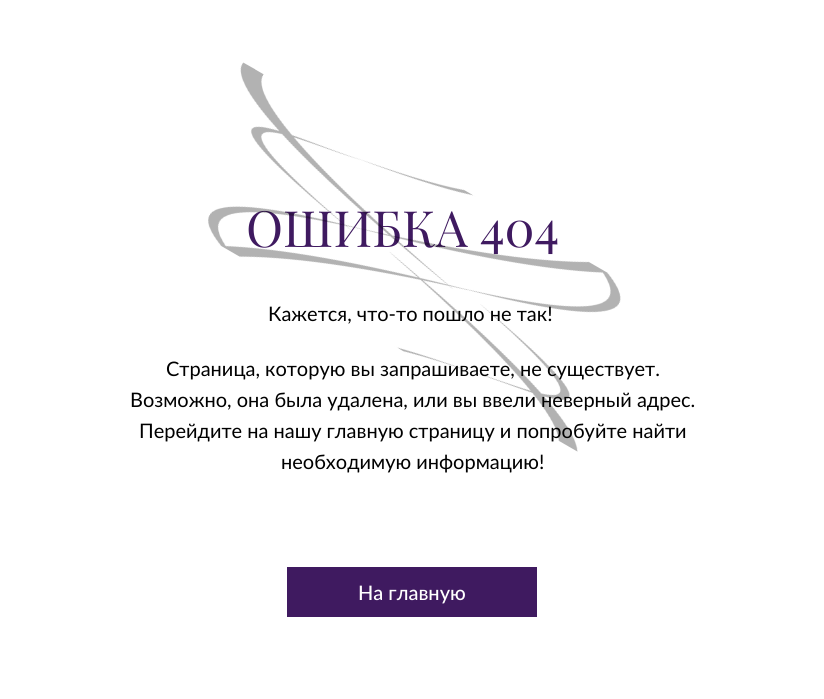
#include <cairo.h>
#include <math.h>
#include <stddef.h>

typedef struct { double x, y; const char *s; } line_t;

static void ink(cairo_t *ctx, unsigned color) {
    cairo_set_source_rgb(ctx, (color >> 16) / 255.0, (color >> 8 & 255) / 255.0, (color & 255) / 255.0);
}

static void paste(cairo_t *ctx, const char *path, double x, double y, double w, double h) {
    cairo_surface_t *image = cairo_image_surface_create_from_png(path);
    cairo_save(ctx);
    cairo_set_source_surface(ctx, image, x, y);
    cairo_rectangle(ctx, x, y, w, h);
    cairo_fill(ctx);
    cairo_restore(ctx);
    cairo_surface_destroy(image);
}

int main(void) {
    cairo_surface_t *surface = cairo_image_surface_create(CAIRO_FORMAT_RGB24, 824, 699);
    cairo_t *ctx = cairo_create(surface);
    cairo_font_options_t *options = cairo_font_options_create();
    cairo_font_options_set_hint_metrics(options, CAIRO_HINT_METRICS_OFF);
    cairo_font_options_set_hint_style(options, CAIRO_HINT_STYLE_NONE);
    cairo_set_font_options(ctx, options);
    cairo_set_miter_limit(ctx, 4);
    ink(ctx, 0xFFFFFF);
    cairo_paint(ctx);
    cairo_select_font_face(ctx, "Playfair Display", CAIRO_FONT_SLANT_NORMAL, CAIRO_FONT_WEIGHT_NORMAL);
    cairo_set_font_size(ctx, 50);
    ink(ctx, 0x3F1A60);
    cairo_move_to(ctx, 246, 247);
    cairo_show_text(ctx, "ОШИБКА 404");
    cairo_select_font_face(ctx, "Lato", CAIRO_FONT_SLANT_NORMAL, CAIRO_FONT_WEIGHT_NORMAL);
    cairo_set_font_size(ctx, 20);
    ink(ctx, 0x000000);
    {
        static const line_t items[] = {
            {268, 321, "Кажется, что-то пошло не так!"},
            {166, 376, "Страница, которую вы запрашиваете, не существует."},
            {130, 407, "Возможно, она была удалена, или вы ввели неверный адрес."},
            {139, 438, "Перейдите на нашу главную страницу и попробуйте найти"},
        };
        for (size_t i = 0; i < sizeof items / sizeof *items; i++) {
            cairo_move_to(ctx, items[i].x, items[i].y);
            cairo_show_text(ctx, items[i].s);
        }
    }
    paste(ctx, "media/1.png", 208, 62, 413, 390);
    cairo_move_to(ctx, 281, 469);
    cairo_show_text(ctx, "необходимую информацию!");
    ink(ctx, 0x3F1A60);
    cairo_rectangle(ctx, 287, 567, 250, 50);
    cairo_fill(ctx);
    cairo_select_font_face(ctx, "Lato Medium", CAIRO_FONT_SLANT_NORMAL, CAIRO_FONT_WEIGHT_NORMAL);
    ink(ctx, 0xFFFFFF);
    cairo_move_to(ctx, 358, 600);
    cairo_show_text(ctx, "На главную");
    cairo_surface_write_to_png(surface, "image.png");
    cairo_font_options_destroy(options);
    cairo_destroy(ctx);
    cairo_surface_destroy(surface);
    return 0;
}
